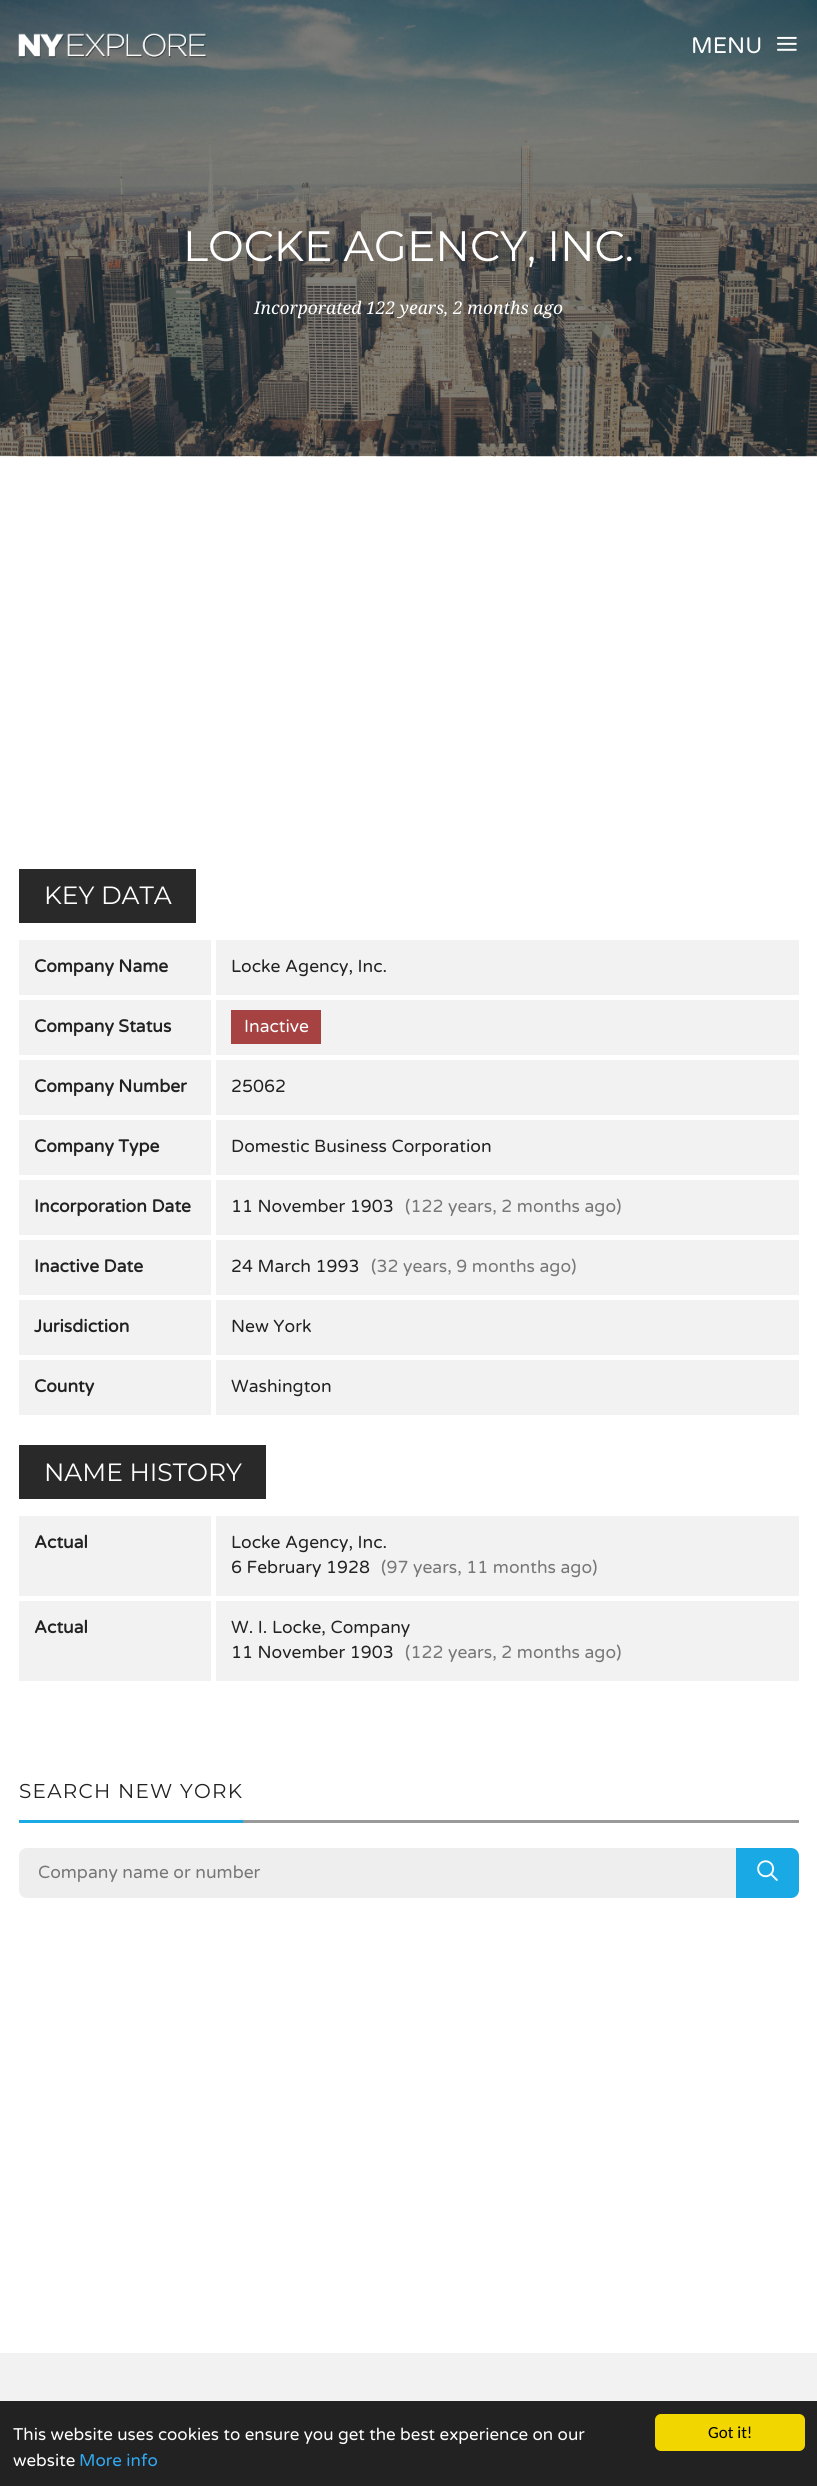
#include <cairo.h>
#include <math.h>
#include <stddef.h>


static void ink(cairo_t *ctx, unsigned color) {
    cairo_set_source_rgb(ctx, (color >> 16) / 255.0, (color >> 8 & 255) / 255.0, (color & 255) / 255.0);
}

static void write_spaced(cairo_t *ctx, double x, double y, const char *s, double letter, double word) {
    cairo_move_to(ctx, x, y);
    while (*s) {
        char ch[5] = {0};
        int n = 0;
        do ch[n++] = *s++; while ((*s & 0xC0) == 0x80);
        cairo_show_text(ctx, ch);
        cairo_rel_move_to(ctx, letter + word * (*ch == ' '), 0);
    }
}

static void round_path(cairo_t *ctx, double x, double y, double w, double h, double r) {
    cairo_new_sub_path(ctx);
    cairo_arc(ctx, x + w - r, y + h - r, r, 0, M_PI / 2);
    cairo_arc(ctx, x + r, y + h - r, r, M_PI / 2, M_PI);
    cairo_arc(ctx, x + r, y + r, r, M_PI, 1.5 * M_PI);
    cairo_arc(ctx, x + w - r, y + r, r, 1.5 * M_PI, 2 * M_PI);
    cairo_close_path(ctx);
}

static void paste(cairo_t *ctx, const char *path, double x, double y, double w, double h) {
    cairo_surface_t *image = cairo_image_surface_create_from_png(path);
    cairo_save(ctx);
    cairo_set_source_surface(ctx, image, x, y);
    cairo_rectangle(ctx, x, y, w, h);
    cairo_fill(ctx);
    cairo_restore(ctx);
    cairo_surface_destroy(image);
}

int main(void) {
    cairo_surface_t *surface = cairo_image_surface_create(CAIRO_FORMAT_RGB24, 817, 2486);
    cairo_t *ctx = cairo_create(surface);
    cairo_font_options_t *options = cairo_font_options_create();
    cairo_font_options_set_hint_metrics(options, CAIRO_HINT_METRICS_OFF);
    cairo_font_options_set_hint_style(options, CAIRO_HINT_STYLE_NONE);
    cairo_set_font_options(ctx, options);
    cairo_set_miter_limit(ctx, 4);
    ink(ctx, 0xF2F2F2);
    cairo_paint(ctx);
    ink(ctx, 0xFFFFFF);
    cairo_rectangle(ctx, 0, 456, 817, 1897);
    cairo_fill(ctx);
    paste(ctx, "media/3.png", 0, 0, 817, 457);
    paste(ctx, "media/1.png", 18, 33, 189, 25);
    cairo_select_font_face(ctx, "Varela Round", CAIRO_FONT_SLANT_NORMAL, CAIRO_FONT_WEIGHT_NORMAL);
    cairo_set_font_size(ctx, 22.5);
    cairo_move_to(ctx, 691, 53);
    cairo_show_text(ctx, "MENU");
    paste(ctx, "media/2.png", 777, 36, 20, 15);
    cairo_select_font_face(ctx, "Montserrat", CAIRO_FONT_SLANT_NORMAL, CAIRO_FONT_WEIGHT_NORMAL);
    cairo_set_font_size(ctx, 42.5);
    cairo_move_to(ctx, 183, 261);
    cairo_show_text(ctx, "LOCKE AGENCY, INC.");
    cairo_select_font_face(ctx, "Droid Serif", CAIRO_FONT_SLANT_ITALIC, CAIRO_FONT_WEIGHT_NORMAL);
    cairo_set_font_size(ctx, 17.5);
    cairo_move_to(ctx, 254, 314);
    cairo_show_text(ctx, "Incorporated 122 years, 2 months ago");
    ink(ctx, 0x292929);
    cairo_rectangle(ctx, 19, 869, 177, 54);
    cairo_fill(ctx);
    cairo_select_font_face(ctx, "Montserrat", CAIRO_FONT_SLANT_NORMAL, CAIRO_FONT_WEIGHT_NORMAL);
    cairo_set_font_size(ctx, 25);
    ink(ctx, 0xFFFFFF);
    cairo_move_to(ctx, 44, 904);
    cairo_show_text(ctx, "KEY DATA");
    ink(ctx, 0xF2F2F2);
    cairo_rectangle(ctx, 19, 940, 192, 55);
    cairo_fill(ctx);
    cairo_select_font_face(ctx, "Varela Round", CAIRO_FONT_SLANT_NORMAL, CAIRO_FONT_WEIGHT_BOLD);
    cairo_set_font_size(ctx, 17.5);
    ink(ctx, 0x222222);
    cairo_move_to(ctx, 34, 972);
    cairo_show_text(ctx, "Company Name");
    ink(ctx, 0xF2F2F2);
    cairo_rectangle(ctx, 216, 940, 583, 55);
    cairo_fill(ctx);
    cairo_select_font_face(ctx, "Varela Round", CAIRO_FONT_SLANT_NORMAL, CAIRO_FONT_WEIGHT_NORMAL);
    ink(ctx, 0x222222);
    cairo_move_to(ctx, 231, 972);
    cairo_show_text(ctx, "Locke Agency, Inc.");
    ink(ctx, 0xF2F2F2);
    cairo_rectangle(ctx, 19, 1000, 192, 55);
    cairo_fill(ctx);
    cairo_select_font_face(ctx, "Varela Round", CAIRO_FONT_SLANT_NORMAL, CAIRO_FONT_WEIGHT_BOLD);
    ink(ctx, 0x222222);
    cairo_move_to(ctx, 34, 1032);
    cairo_show_text(ctx, "Company Status");
    ink(ctx, 0xF2F2F2);
    cairo_rectangle(ctx, 216, 1000, 583, 55);
    cairo_fill(ctx);
    ink(ctx, 0xA64242);
    cairo_rectangle(ctx, 231, 1010, 90, 34);
    cairo_fill(ctx);
    cairo_select_font_face(ctx, "Varela Round", CAIRO_FONT_SLANT_NORMAL, CAIRO_FONT_WEIGHT_NORMAL);
    ink(ctx, 0xFFFFFF);
    cairo_move_to(ctx, 244, 1032);
    cairo_show_text(ctx, "Inactive");
    ink(ctx, 0xF2F2F2);
    cairo_rectangle(ctx, 19, 1060, 192, 55);
    cairo_fill(ctx);
    cairo_select_font_face(ctx, "Varela Round", CAIRO_FONT_SLANT_NORMAL, CAIRO_FONT_WEIGHT_BOLD);
    ink(ctx, 0x222222);
    cairo_move_to(ctx, 34, 1092);
    cairo_show_text(ctx, "Company Number");
    ink(ctx, 0xF2F2F2);
    cairo_rectangle(ctx, 216, 1060, 583, 55);
    cairo_fill(ctx);
    cairo_select_font_face(ctx, "Varela Round", CAIRO_FONT_SLANT_NORMAL, CAIRO_FONT_WEIGHT_NORMAL);
    ink(ctx, 0x222222);
    cairo_move_to(ctx, 231, 1092);
    cairo_show_text(ctx, "25062");
    ink(ctx, 0xF2F2F2);
    cairo_rectangle(ctx, 19, 1120, 192, 55);
    cairo_fill(ctx);
    cairo_select_font_face(ctx, "Varela Round", CAIRO_FONT_SLANT_NORMAL, CAIRO_FONT_WEIGHT_BOLD);
    ink(ctx, 0x222222);
    cairo_move_to(ctx, 34, 1152);
    cairo_show_text(ctx, "Company Type");
    ink(ctx, 0xF2F2F2);
    cairo_rectangle(ctx, 216, 1120, 583, 55);
    cairo_fill(ctx);
    cairo_select_font_face(ctx, "Varela Round", CAIRO_FONT_SLANT_NORMAL, CAIRO_FONT_WEIGHT_NORMAL);
    ink(ctx, 0x222222);
    cairo_move_to(ctx, 231, 1152);
    cairo_show_text(ctx, "Domestic Business Corporation");
    ink(ctx, 0xF2F2F2);
    cairo_rectangle(ctx, 19, 1180, 192, 55);
    cairo_fill(ctx);
    cairo_select_font_face(ctx, "Varela Round", CAIRO_FONT_SLANT_NORMAL, CAIRO_FONT_WEIGHT_BOLD);
    ink(ctx, 0x222222);
    cairo_move_to(ctx, 34, 1212);
    cairo_show_text(ctx, "Incorporation Date");
    ink(ctx, 0xF2F2F2);
    cairo_rectangle(ctx, 216, 1180, 583, 55);
    cairo_fill(ctx);
    cairo_select_font_face(ctx, "Varela Round", CAIRO_FONT_SLANT_NORMAL, CAIRO_FONT_WEIGHT_NORMAL);
    ink(ctx, 0x222222);
    cairo_move_to(ctx, 231, 1212);
    cairo_show_text(ctx, "11 November 1903");
    ink(ctx, 0x777777);
    cairo_move_to(ctx, 405, 1212);
    cairo_show_text(ctx, "(122 years, 2 months ago)");
    ink(ctx, 0xF2F2F2);
    cairo_rectangle(ctx, 19, 1240, 192, 55);
    cairo_fill(ctx);
    cairo_select_font_face(ctx, "Varela Round", CAIRO_FONT_SLANT_NORMAL, CAIRO_FONT_WEIGHT_BOLD);
    ink(ctx, 0x222222);
    cairo_move_to(ctx, 34, 1272);
    cairo_show_text(ctx, "Inactive Date");
    ink(ctx, 0xF2F2F2);
    cairo_rectangle(ctx, 216, 1240, 583, 55);
    cairo_fill(ctx);
    cairo_select_font_face(ctx, "Varela Round", CAIRO_FONT_SLANT_NORMAL, CAIRO_FONT_WEIGHT_NORMAL);
    ink(ctx, 0x222222);
    cairo_move_to(ctx, 231, 1272);
    cairo_show_text(ctx, "24 March 1993");
    ink(ctx, 0x777777);
    cairo_move_to(ctx, 371, 1272);
    cairo_show_text(ctx, "(32 years, 9 months ago)");
    ink(ctx, 0xF2F2F2);
    cairo_rectangle(ctx, 19, 1300, 192, 55);
    cairo_fill(ctx);
    cairo_select_font_face(ctx, "Varela Round", CAIRO_FONT_SLANT_NORMAL, CAIRO_FONT_WEIGHT_BOLD);
    ink(ctx, 0x222222);
    cairo_move_to(ctx, 34, 1332);
    cairo_show_text(ctx, "Jurisdiction");
    ink(ctx, 0xF2F2F2);
    cairo_rectangle(ctx, 216, 1300, 583, 55);
    cairo_fill(ctx);
    cairo_select_font_face(ctx, "Varela Round", CAIRO_FONT_SLANT_NORMAL, CAIRO_FONT_WEIGHT_NORMAL);
    ink(ctx, 0x222222);
    cairo_move_to(ctx, 231, 1332);
    cairo_show_text(ctx, "New York");
    ink(ctx, 0xF2F2F2);
    cairo_rectangle(ctx, 19, 1360, 192, 55);
    cairo_fill(ctx);
    cairo_select_font_face(ctx, "Varela Round", CAIRO_FONT_SLANT_NORMAL, CAIRO_FONT_WEIGHT_BOLD);
    ink(ctx, 0x222222);
    cairo_move_to(ctx, 34, 1392);
    cairo_show_text(ctx, "County");
    ink(ctx, 0xF2F2F2);
    cairo_rectangle(ctx, 216, 1360, 583, 55);
    cairo_fill(ctx);
    cairo_select_font_face(ctx, "Varela Round", CAIRO_FONT_SLANT_NORMAL, CAIRO_FONT_WEIGHT_NORMAL);
    ink(ctx, 0x222222);
    cairo_move_to(ctx, 231, 1392);
    cairo_show_text(ctx, "Washington");
    ink(ctx, 0x292929);
    cairo_rectangle(ctx, 19, 1445, 247, 54);
    cairo_fill(ctx);
    cairo_select_font_face(ctx, "Montserrat", CAIRO_FONT_SLANT_NORMAL, CAIRO_FONT_WEIGHT_NORMAL);
    cairo_set_font_size(ctx, 25);
    ink(ctx, 0xFFFFFF);
    cairo_move_to(ctx, 44, 1481);
    cairo_show_text(ctx, "NAME HISTORY");
    ink(ctx, 0xF2F2F2);
    cairo_rectangle(ctx, 19, 1516, 192, 80);
    cairo_fill(ctx);
    cairo_select_font_face(ctx, "Varela Round", CAIRO_FONT_SLANT_NORMAL, CAIRO_FONT_WEIGHT_BOLD);
    cairo_set_font_size(ctx, 17.5);
    ink(ctx, 0x222222);
    cairo_move_to(ctx, 34, 1548);
    cairo_show_text(ctx, "Actual");
    ink(ctx, 0xF2F2F2);
    cairo_rectangle(ctx, 216, 1516, 583, 80);
    cairo_fill(ctx);
    cairo_select_font_face(ctx, "Varela Round", CAIRO_FONT_SLANT_NORMAL, CAIRO_FONT_WEIGHT_NORMAL);
    ink(ctx, 0x222222);
    cairo_move_to(ctx, 231, 1548);
    cairo_show_text(ctx, "Locke Agency, Inc.");
    cairo_move_to(ctx, 231, 1573);
    cairo_show_text(ctx, "6 February 1928");
    ink(ctx, 0x777777);
    cairo_move_to(ctx, 381, 1573);
    cairo_show_text(ctx, "(97 years, 11 months ago)");
    ink(ctx, 0xF2F2F2);
    cairo_rectangle(ctx, 19, 1601, 192, 80);
    cairo_fill(ctx);
    cairo_select_font_face(ctx, "Varela Round", CAIRO_FONT_SLANT_NORMAL, CAIRO_FONT_WEIGHT_BOLD);
    ink(ctx, 0x222222);
    cairo_move_to(ctx, 34, 1633);
    cairo_show_text(ctx, "Actual");
    ink(ctx, 0xF2F2F2);
    cairo_rectangle(ctx, 216, 1601, 583, 80);
    cairo_fill(ctx);
    cairo_select_font_face(ctx, "Varela Round", CAIRO_FONT_SLANT_NORMAL, CAIRO_FONT_WEIGHT_NORMAL);
    ink(ctx, 0x222222);
    cairo_move_to(ctx, 231, 1633);
    cairo_show_text(ctx, "W. I. Locke, Company");
    cairo_move_to(ctx, 231, 1658);
    cairo_show_text(ctx, "11 November 1903");
    ink(ctx, 0x777777);
    cairo_move_to(ctx, 405, 1658);
    cairo_show_text(ctx, "(122 years, 2 months ago)");
    ink(ctx, 0x999999);
    cairo_rectangle(ctx, 243, 1820, 556, 3);
    cairo_fill(ctx);
    ink(ctx, 0x19A9E5);
    cairo_rectangle(ctx, 19, 1820, 224, 3);
    cairo_fill(ctx);
    cairo_select_font_face(ctx, "Montserrat", CAIRO_FONT_SLANT_NORMAL, CAIRO_FONT_WEIGHT_NORMAL);
    cairo_set_font_size(ctx, 20);
    ink(ctx, 0x222222);
    write_spaced(ctx, 19, 1798, "SEARCH NEW YORK", 1.25, 0);
    ink(ctx, 0xEEEEEE);
    cairo_new_path(ctx);
    cairo_move_to(ctx, 27, 1848);
    cairo_line_to(ctx, 736, 1848);
    cairo_line_to(ctx, 736, 1898);
    cairo_line_to(ctx, 27, 1898);
    cairo_curve_to(ctx, 22.5, 1898, 19, 1894.5, 19, 1890);
    cairo_line_to(ctx, 19, 1856);
    cairo_curve_to(ctx, 19, 1851.5, 22.5, 1848, 27, 1848);
    cairo_close_path(ctx);
    cairo_fill(ctx);
    cairo_select_font_face(ctx, "Varela Round", CAIRO_FONT_SLANT_NORMAL, CAIRO_FONT_WEIGHT_NORMAL);
    cairo_set_font_size(ctx, 17.5);
    ink(ctx, 0x777777);
    cairo_move_to(ctx, 38, 1878);
    cairo_show_text(ctx, "Company name or number");
    ink(ctx, 0x19A9E5);
    cairo_new_path(ctx);
    cairo_move_to(ctx, 736, 1848);
    cairo_line_to(ctx, 791, 1848);
    cairo_curve_to(ctx, 795.5, 1848, 799, 1851.5, 799, 1856);
    cairo_line_to(ctx, 799, 1890);
    cairo_curve_to(ctx, 799, 1894.5, 795.5, 1898, 791, 1898);
    cairo_line_to(ctx, 736, 1898);
    cairo_close_path(ctx);
    cairo_fill(ctx);
    paste(ctx, "media/4.png", 757, 1860, 21, 21);
    ink(ctx, 0x222222);
    cairo_rectangle(ctx, 0, 2401, 817, 85);
    cairo_fill(ctx);
    cairo_set_font_size(ctx, 17);
    ink(ctx, 0xFFFFFF);
    cairo_move_to(ctx, 13, 2440);
    cairo_show_text(ctx, "This website uses cookies to ensure you get the best experience on our");
    cairo_move_to(ctx, 13, 2466);
    cairo_show_text(ctx, "website");
    ink(ctx, 0x31A8F0);
    cairo_move_to(ctx, 79, 2466);
    cairo_show_text(ctx, "More info");
    ink(ctx, 0xF1D600);
    round_path(ctx, 655, 2414, 150, 37, 6);
    cairo_fill(ctx);
    cairo_select_font_face(ctx, "Carlito", CAIRO_FONT_SLANT_NORMAL, CAIRO_FONT_WEIGHT_NORMAL);
    ink(ctx, 0x000000);
    cairo_move_to(ctx, 708, 2438);
    cairo_show_text(ctx, "Got it!");
    cairo_surface_write_to_png(surface, "image.png");
    cairo_font_options_destroy(options);
    cairo_destroy(ctx);
    cairo_surface_destroy(surface);
    return 0;
}
